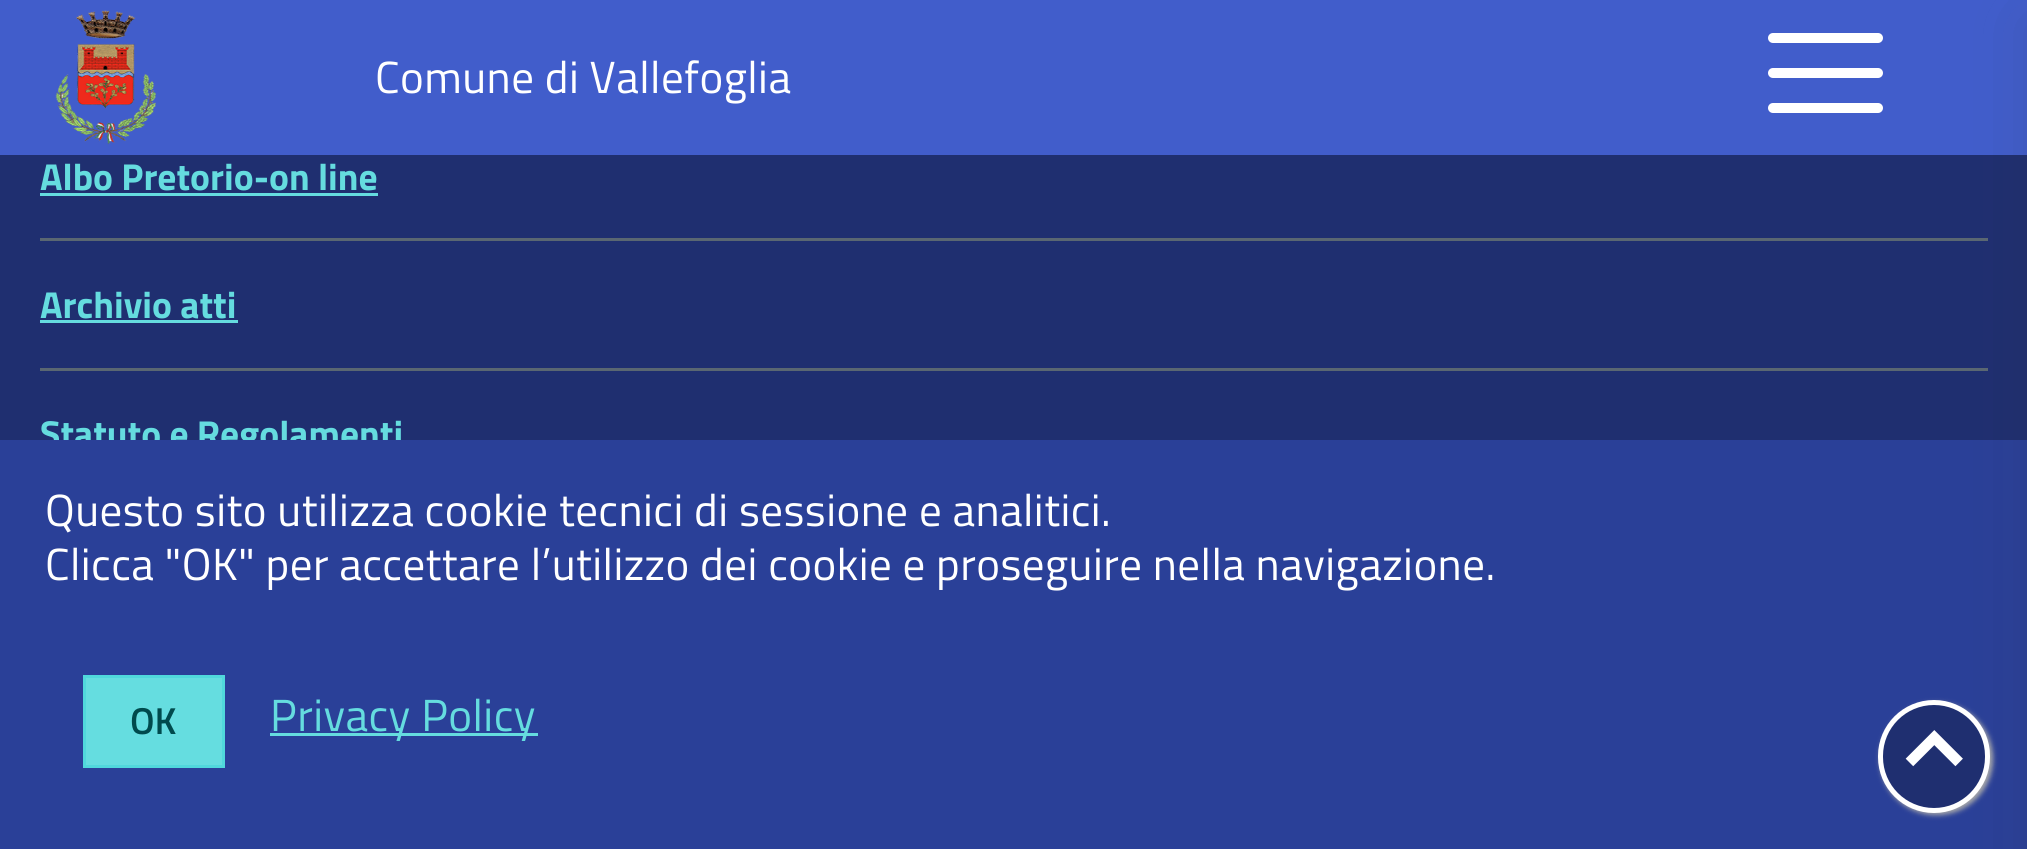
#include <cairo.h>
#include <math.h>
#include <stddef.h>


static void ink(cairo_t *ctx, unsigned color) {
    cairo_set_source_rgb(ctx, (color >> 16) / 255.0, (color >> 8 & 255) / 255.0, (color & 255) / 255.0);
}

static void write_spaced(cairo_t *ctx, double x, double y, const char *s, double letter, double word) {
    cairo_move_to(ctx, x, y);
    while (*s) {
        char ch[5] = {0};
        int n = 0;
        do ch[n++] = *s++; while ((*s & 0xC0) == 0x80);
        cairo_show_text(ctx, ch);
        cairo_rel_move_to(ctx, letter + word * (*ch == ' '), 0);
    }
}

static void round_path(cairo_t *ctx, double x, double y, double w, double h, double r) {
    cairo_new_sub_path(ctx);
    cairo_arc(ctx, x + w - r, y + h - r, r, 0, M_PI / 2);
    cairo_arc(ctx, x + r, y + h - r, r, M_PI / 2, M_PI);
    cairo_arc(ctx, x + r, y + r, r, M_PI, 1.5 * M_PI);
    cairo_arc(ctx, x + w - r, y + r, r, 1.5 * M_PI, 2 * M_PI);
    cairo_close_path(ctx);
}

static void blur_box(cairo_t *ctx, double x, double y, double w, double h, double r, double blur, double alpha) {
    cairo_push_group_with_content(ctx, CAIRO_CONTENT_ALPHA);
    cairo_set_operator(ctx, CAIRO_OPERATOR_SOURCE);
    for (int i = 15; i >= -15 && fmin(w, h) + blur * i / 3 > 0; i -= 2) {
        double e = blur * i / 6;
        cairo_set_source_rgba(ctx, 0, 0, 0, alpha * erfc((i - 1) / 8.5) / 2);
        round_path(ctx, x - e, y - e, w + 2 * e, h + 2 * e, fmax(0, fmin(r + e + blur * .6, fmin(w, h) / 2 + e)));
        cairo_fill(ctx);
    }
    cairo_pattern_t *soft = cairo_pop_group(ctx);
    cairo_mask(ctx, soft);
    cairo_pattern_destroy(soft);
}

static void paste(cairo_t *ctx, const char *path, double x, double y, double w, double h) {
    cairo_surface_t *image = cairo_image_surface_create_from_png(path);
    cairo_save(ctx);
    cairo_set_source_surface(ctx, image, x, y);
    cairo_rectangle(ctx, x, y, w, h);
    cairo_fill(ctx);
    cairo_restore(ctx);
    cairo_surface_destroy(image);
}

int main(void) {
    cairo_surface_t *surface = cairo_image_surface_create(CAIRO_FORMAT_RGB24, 2027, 849);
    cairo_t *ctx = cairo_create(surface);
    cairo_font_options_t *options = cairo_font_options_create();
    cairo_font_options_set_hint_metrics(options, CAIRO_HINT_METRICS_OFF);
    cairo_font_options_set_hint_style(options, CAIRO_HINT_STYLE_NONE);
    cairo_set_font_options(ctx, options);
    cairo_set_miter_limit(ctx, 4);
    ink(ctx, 0x1F2F70);
    cairo_paint(ctx);
    ink(ctx, 0x415DCB);
    cairo_rectangle(ctx, 0, 0, 2027, 155);
    cairo_fill(ctx);
    paste(ctx, "media/1.png", 55, 10, 101, 135);
    cairo_select_font_face(ctx, "Titillium Web", CAIRO_FONT_SLANT_NORMAL, CAIRO_FONT_WEIGHT_NORMAL);
    cairo_set_font_size(ctx, 45);
    ink(ctx, 0xFFFFFF);
    write_spaced(ctx, 375, 93, "Comune di Vallefoglia", 0.45, 0);
    round_path(ctx, 1768, 68, 115, 10, 5);
    cairo_fill(ctx);
    round_path(ctx, 1768, 33, 115, 10, 5);
    cairo_fill(ctx);
    round_path(ctx, 1768, 103, 115, 10, 5);
    cairo_fill(ctx);
    ink(ctx, 0x5A6772);
    cairo_rectangle(ctx, 40, 238, 1948, 3);
    cairo_fill(ctx);
    cairo_rectangle(ctx, 40, 368, 1948, 3);
    cairo_fill(ctx);
    cairo_select_font_face(ctx, "Titillium Web", CAIRO_FONT_SLANT_NORMAL, CAIRO_FONT_WEIGHT_BOLD);
    cairo_set_font_size(ctx, 37.5);
    ink(ctx, 0x65DCDF);
    cairo_move_to(ctx, 40, 447);
    cairo_show_text(ctx, "Statuto e Regolamenti");
    ink(ctx, 0x2A4098);
    cairo_rectangle(ctx, 0, 440, 2027, 409);
    cairo_fill(ctx);
    ink(ctx, 0x323232);
    blur_box(ctx, 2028, 20, 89, 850, 0, 30, 0.15);
    ink(ctx, 0x65DCDF);
    cairo_move_to(ctx, 40, 190);
    cairo_show_text(ctx, "Albo Pretorio-on line");
    cairo_rectangle(ctx, 40, 193, 338, 3);
    cairo_fill(ctx);
    cairo_move_to(ctx, 40, 318);
    cairo_show_text(ctx, "Archivio atti");
    cairo_rectangle(ctx, 40, 320, 198, 3);
    cairo_fill(ctx);
    cairo_select_font_face(ctx, "Titillium Web", CAIRO_FONT_SLANT_NORMAL, CAIRO_FONT_WEIGHT_NORMAL);
    cairo_set_font_size(ctx, 45);
    ink(ctx, 0xFFFFFF);
    write_spaced(ctx, 45, 526, "Questo sito utilizza cookie tecnici di sessione e analitici.", 0.45, 0);
    write_spaced(ctx, 45, 580, "Clicca \"OK\" per accettare l’utilizzo dei cookie e proseguire nella navigazione.", 0.45, 0);
    ink(ctx, 0x65DDE0);
    cairo_rectangle(ctx, 84.5, 676.5, 139, 90);
    cairo_fill_preserve(ctx);
    ink(ctx, 0x50D8DC);
    cairo_set_line_width(ctx, 3);
    cairo_stroke(ctx);
    cairo_select_font_face(ctx, "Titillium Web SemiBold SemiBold", CAIRO_FONT_SLANT_NORMAL, CAIRO_FONT_WEIGHT_NORMAL);
    cairo_set_font_size(ctx, 37.5);
    ink(ctx, 0x004A4D);
    cairo_move_to(ctx, 130, 734);
    cairo_show_text(ctx, "OK");
    ink(ctx, 0x65DCDF);
    cairo_rectangle(ctx, 270, 733, 268, 3);
    cairo_fill(ctx);
    cairo_select_font_face(ctx, "Titillium Web", CAIRO_FONT_SLANT_NORMAL, CAIRO_FONT_WEIGHT_NORMAL);
    cairo_set_font_size(ctx, 45);
    write_spaced(ctx, 270, 731, "Privacy Policy", 0.45, 0);
    ink(ctx, 0xAAAAAA);
    blur_box(ctx, 1880, 703, 113, 112, 56, 2.5, 1);
    ink(ctx, 0x1F2F70);
    round_path(ctx, 1880.5, 702.5, 107, 108, 53.5);
    cairo_fill_preserve(ctx);
    ink(ctx, 0xFFFFFF);
    cairo_set_line_width(ctx, 5);
    cairo_stroke(ctx);
    cairo_select_font_face(ctx, "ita", CAIRO_FONT_SLANT_NORMAL, CAIRO_FONT_WEIGHT_BOLD);
    cairo_set_font_size(ctx, 55);
    cairo_move_to(ctx, 1906, 773);
    cairo_show_text(ctx, "⏷");
    cairo_surface_write_to_png(surface, "image.png");
    cairo_font_options_destroy(options);
    cairo_destroy(ctx);
    cairo_surface_destroy(surface);
    return 0;
}
